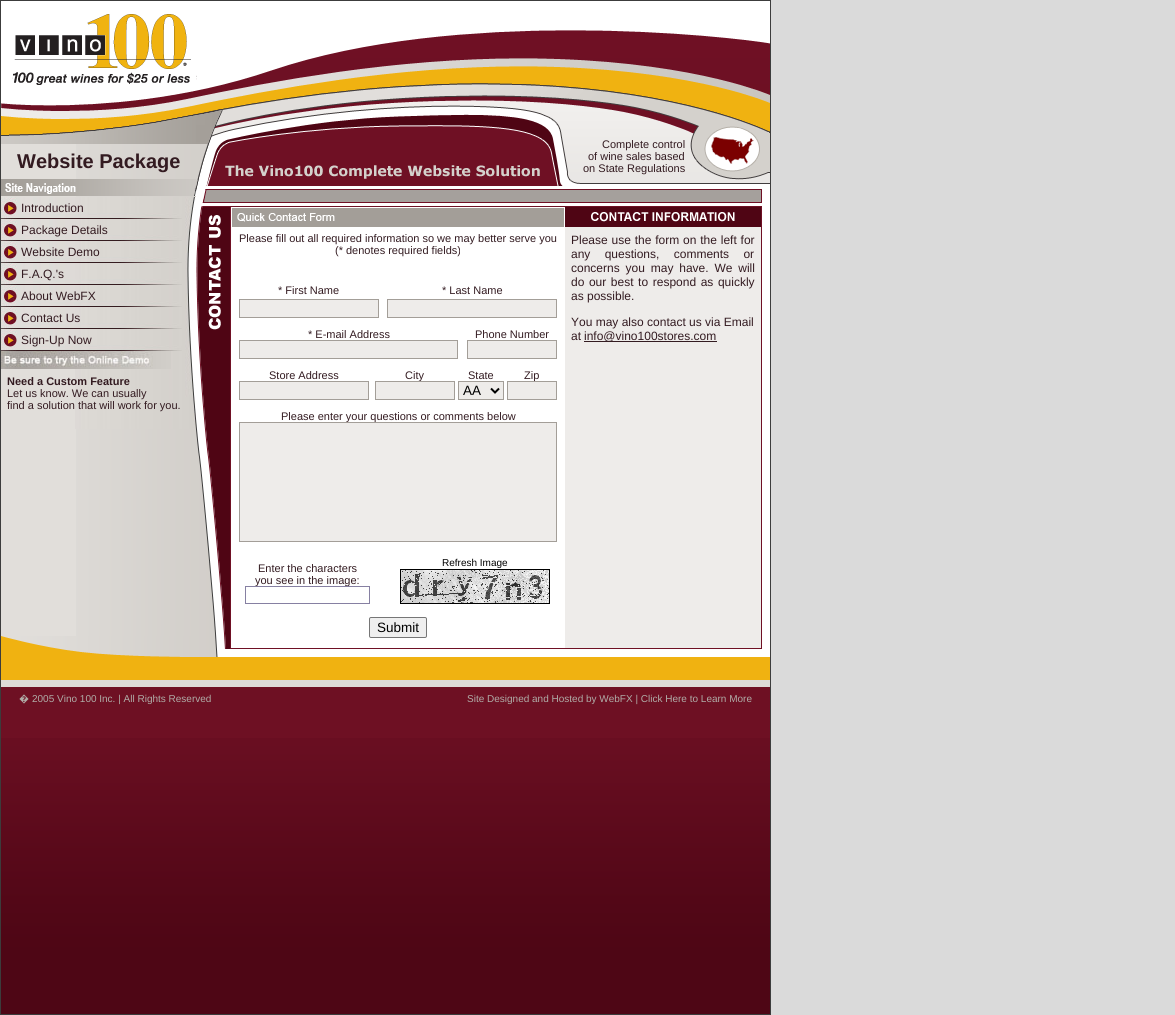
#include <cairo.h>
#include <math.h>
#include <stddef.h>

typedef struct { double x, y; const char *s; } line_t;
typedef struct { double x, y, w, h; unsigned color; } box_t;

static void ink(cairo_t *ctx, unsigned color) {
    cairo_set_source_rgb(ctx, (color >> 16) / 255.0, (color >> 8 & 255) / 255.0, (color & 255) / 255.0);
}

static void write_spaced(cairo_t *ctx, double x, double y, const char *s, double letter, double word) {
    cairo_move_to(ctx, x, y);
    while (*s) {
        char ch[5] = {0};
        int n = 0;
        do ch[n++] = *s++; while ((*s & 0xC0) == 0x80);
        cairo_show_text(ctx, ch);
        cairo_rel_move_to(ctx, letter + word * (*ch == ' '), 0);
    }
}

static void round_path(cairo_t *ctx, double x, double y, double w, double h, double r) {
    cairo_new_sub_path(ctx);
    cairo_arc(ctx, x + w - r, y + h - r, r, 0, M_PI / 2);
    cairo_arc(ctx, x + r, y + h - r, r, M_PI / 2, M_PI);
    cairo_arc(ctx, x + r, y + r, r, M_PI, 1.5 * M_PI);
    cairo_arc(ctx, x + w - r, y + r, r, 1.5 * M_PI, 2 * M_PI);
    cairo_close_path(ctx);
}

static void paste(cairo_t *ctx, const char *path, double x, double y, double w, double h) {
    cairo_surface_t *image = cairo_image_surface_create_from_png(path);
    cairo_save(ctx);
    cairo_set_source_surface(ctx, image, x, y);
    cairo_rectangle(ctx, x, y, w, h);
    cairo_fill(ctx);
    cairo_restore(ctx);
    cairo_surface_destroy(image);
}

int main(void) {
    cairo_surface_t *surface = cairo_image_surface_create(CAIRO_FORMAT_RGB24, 1175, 1015);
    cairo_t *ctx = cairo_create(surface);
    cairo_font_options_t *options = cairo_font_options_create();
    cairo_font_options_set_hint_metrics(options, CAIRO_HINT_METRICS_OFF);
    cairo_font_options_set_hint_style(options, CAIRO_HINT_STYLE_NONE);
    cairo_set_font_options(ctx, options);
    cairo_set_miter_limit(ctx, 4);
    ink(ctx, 0xDADADA);
    cairo_paint(ctx);
    ink(ctx, 0xFFFFFF);
    cairo_rectangle(ctx, 1, 1, 769, 656);
    cairo_fill(ctx);
    cairo_rectangle(ctx, 0.5, 0.5, 770, 1014);
    ink(ctx, 0x3C3C3C);
    cairo_set_line_width(ctx, 1);
    cairo_stroke(ctx);
    paste(ctx, "media/1.png", 1, 14, 195, 94);
    paste(ctx, "media/2.png", 339, 30, 431, 22);
    paste(ctx, "media/3.png", 263, 52, 507, 21);
    paste(ctx, "media/4.png", 196, 73, 574, 35);
    ink(ctx, 0xE1DEDA);
    cairo_rectangle(ctx, 1, 144, 75, 492);
    cairo_fill(ctx);
    paste(ctx, "media/5.png", 76, 144, 120, 492);
    paste(ctx, "media/6.png", 1, 108, 195, 36);
    cairo_select_font_face(ctx, "Liberation Sans", CAIRO_FONT_SLANT_NORMAL, CAIRO_FONT_WEIGHT_BOLD);
    cairo_set_font_size(ctx, 20);
    ink(ctx, 0x331B21);
    cairo_move_to(ctx, 17, 168);
    cairo_show_text(ctx, "Website Package");
    paste(ctx, "media/7.png", 1, 179, 195, 17);
    paste(ctx, "media/8.png", 75, 197, 121, 232);
    paste(ctx, "media/9.png", 1, 197, 181, 22);
    cairo_select_font_face(ctx, "Liberation Sans", CAIRO_FONT_SLANT_NORMAL, CAIRO_FONT_WEIGHT_NORMAL);
    cairo_set_font_size(ctx, 12);
    cairo_move_to(ctx, 21, 212);
    cairo_show_text(ctx, "Introduction");
    paste(ctx, "media/9.png", 1, 219, 181, 22);
    cairo_move_to(ctx, 21, 234);
    cairo_show_text(ctx, "Package Details");
    paste(ctx, "media/9.png", 1, 241, 181, 22);
    cairo_move_to(ctx, 21, 256);
    cairo_show_text(ctx, "Website Demo");
    paste(ctx, "media/9.png", 1, 263, 181, 22);
    cairo_move_to(ctx, 21, 278);
    cairo_show_text(ctx, "F.A.Q.'s");
    paste(ctx, "media/9.png", 1, 285, 181, 22);
    cairo_move_to(ctx, 21, 300);
    cairo_show_text(ctx, "About WebFX");
    paste(ctx, "media/9.png", 1, 307, 181, 22);
    cairo_move_to(ctx, 21, 322);
    cairo_show_text(ctx, "Contact Us");
    paste(ctx, "media/9.png", 1, 329, 181, 22);
    cairo_move_to(ctx, 21, 344);
    cairo_show_text(ctx, "Sign-Up Now");
    paste(ctx, "media/10.png", 1, 351, 170, 18);
    cairo_select_font_face(ctx, "Liberation Sans", CAIRO_FONT_SLANT_NORMAL, CAIRO_FONT_WEIGHT_BOLD);
    cairo_set_font_size(ctx, 11);
    cairo_move_to(ctx, 7, 385);
    cairo_show_text(ctx, "Need a Custom Feature");
    cairo_select_font_face(ctx, "Liberation Sans", CAIRO_FONT_SLANT_NORMAL, CAIRO_FONT_WEIGHT_NORMAL);
    cairo_move_to(ctx, 7, 397);
    cairo_show_text(ctx, "Let us know. We can usually");
    cairo_move_to(ctx, 7, 409);
    cairo_show_text(ctx, "find a solution that will work for you.");
    paste(ctx, "media/11.png", 1, 636, 195, 51);
    paste(ctx, "media/12.png", 196, 649, 24, 8);
    paste(ctx, "media/13.png", 196, 108, 574, 95);
    {
        static const line_t items[] = {
            {602, 148, "Complete control"},
            {588, 160, "of wine sales based"},
            {583, 172, "on State Regulations"},
        };
        for (size_t i = 0; i < sizeof items / sizeof *items; i++) {
            cairo_move_to(ctx, items[i].x, items[i].y);
            cairo_show_text(ctx, items[i].s);
        }
    }
    paste(ctx, "media/14.png", 711, 126, 48, 38);
    paste(ctx, "media/15.png", 196, 206, 34, 443);
    paste(ctx, "media/16.png", 208, 215, 13, 115);
    {
        static const box_t items[] = {
            {230, 206, 532, 1, 0x6F1024},
            {230, 648, 335, 1, 0x6F1024},
            {230, 206, 1, 443, 0x6F1024},
        };
        for (size_t i = 0; i < sizeof items / sizeof *items; i++) {
            ink(ctx, items[i].color);
            cairo_rectangle(ctx, items[i].x, items[i].y, items[i].w, items[i].h);
            cairo_fill(ctx);
        }
    }
    paste(ctx, "media/17.png", 232, 208, 332, 19);
    ink(ctx, 0x331B21);
    {
        static const line_t items[] = {
            {239, 242, "Please fill out all required information so we may better serve you"},
            {335, 254, "(* denotes required fields)"},
            {278, 294, "* First Name"},
            {442, 294, "* Last Name"},
        };
        for (size_t i = 0; i < sizeof items / sizeof *items; i++) {
            cairo_move_to(ctx, items[i].x, items[i].y);
            cairo_show_text(ctx, items[i].s);
        }
    }
    ink(ctx, 0xEEECEA);
    cairo_rectangle(ctx, 239.5, 299.5, 139, 18);
    cairo_fill_preserve(ctx);
    ink(ctx, 0xA39E98);
    cairo_stroke(ctx);
    ink(ctx, 0xEEECEA);
    cairo_rectangle(ctx, 387.5, 299.5, 169, 18);
    cairo_fill_preserve(ctx);
    ink(ctx, 0xA39E98);
    cairo_stroke(ctx);
    ink(ctx, 0x331B21);
    cairo_move_to(ctx, 308, 338);
    cairo_show_text(ctx, "* E-mail Address");
    cairo_move_to(ctx, 475, 338);
    cairo_show_text(ctx, "Phone Number");
    ink(ctx, 0xEEECEA);
    cairo_rectangle(ctx, 239.5, 340.5, 218, 18);
    cairo_fill_preserve(ctx);
    ink(ctx, 0xA39E98);
    cairo_stroke(ctx);
    ink(ctx, 0xEEECEA);
    cairo_rectangle(ctx, 467.5, 340.5, 89, 18);
    cairo_fill_preserve(ctx);
    ink(ctx, 0xA39E98);
    cairo_stroke(ctx);
    ink(ctx, 0x331B21);
    {
        static const line_t items[] = {
            {269, 379, "Store Address"},
            {405, 379, "City"},
            {468, 379, "State"},
            {524, 379, "Zip"},
        };
        for (size_t i = 0; i < sizeof items / sizeof *items; i++) {
            cairo_move_to(ctx, items[i].x, items[i].y);
            cairo_show_text(ctx, items[i].s);
        }
    }
    ink(ctx, 0xEEECEA);
    cairo_rectangle(ctx, 239.5, 381.5, 129, 18);
    cairo_fill_preserve(ctx);
    ink(ctx, 0xA39E98);
    cairo_stroke(ctx);
    ink(ctx, 0xEEECEA);
    cairo_rectangle(ctx, 375.5, 381.5, 79, 18);
    cairo_fill_preserve(ctx);
    ink(ctx, 0xA39E98);
    cairo_stroke(ctx);
    ink(ctx, 0xEEECEA);
    cairo_rectangle(ctx, 458.5, 381.5, 45, 18);
    cairo_fill_preserve(ctx);
    ink(ctx, 0xA39E98);
    cairo_stroke(ctx);
    cairo_new_path(ctx);
    cairo_move_to(ctx, 491, 388.5);
    cairo_line_to(ctx, 495, 392.5);
    cairo_line_to(ctx, 499, 388.5);
    ink(ctx, 0x000000);
    cairo_set_line_width(ctx, 2);
    cairo_stroke(ctx);
    cairo_set_font_size(ctx, 13.5);
    cairo_move_to(ctx, 463, 395);
    cairo_show_text(ctx, "AA");
    ink(ctx, 0xEEECEA);
    cairo_rectangle(ctx, 507.5, 381.5, 49, 18);
    cairo_fill_preserve(ctx);
    ink(ctx, 0xA39E98);
    cairo_set_line_width(ctx, 1);
    cairo_stroke(ctx);
    cairo_set_font_size(ctx, 11);
    ink(ctx, 0x331B21);
    cairo_move_to(ctx, 281, 420);
    cairo_show_text(ctx, "Please enter your questions or comments below");
    ink(ctx, 0xEEECEA);
    cairo_rectangle(ctx, 239.5, 422.5, 317, 119);
    cairo_fill_preserve(ctx);
    ink(ctx, 0xA39E98);
    cairo_stroke(ctx);
    ink(ctx, 0x331B21);
    cairo_move_to(ctx, 258, 572);
    cairo_show_text(ctx, "Enter the characters");
    cairo_move_to(ctx, 255, 584);
    cairo_show_text(ctx, "you see in the image:");
    cairo_rectangle(ctx, 245.5, 586.5, 124, 17);
    ink(ctx, 0x8680A2);
    cairo_stroke(ctx);
    cairo_set_font_size(ctx, 10);
    ink(ctx, 0x000000);
    cairo_move_to(ctx, 442, 566);
    cairo_show_text(ctx, "Refresh Image");
    paste(ctx, "media/18.png", 400, 569, 150, 35);
    ink(ctx, 0xEFEFEF);
    round_path(ctx, 369.5, 617.5, 57, 20, 1.5);
    cairo_fill_preserve(ctx);
    ink(ctx, 0x767676);
    cairo_stroke(ctx);
    cairo_set_font_size(ctx, 13.5);
    ink(ctx, 0x000000);
    cairo_move_to(ctx, 377, 632);
    cairo_show_text(ctx, "Submit");
    {
        static const box_t items[] = {
            {565, 227, 196, 421, 0xEEECEA},
            {761, 206, 1, 443, 0x6F1024},
            {565, 648, 197, 1, 0x6F1024},
        };
        for (size_t i = 0; i < sizeof items / sizeof *items; i++) {
            ink(ctx, items[i].color);
            cairo_rectangle(ctx, items[i].x, items[i].y, items[i].w, items[i].h);
            cairo_fill(ctx);
        }
    }
    paste(ctx, "media/19.png", 565, 207, 196, 20);
    cairo_set_font_size(ctx, 12);
    ink(ctx, 0x331B21);
    write_spaced(ctx, 571, 244, "Please use the form on the left for", 0, 0.5);
    write_spaced(ctx, 571, 258, "any questions, comments or", 0, 11);
    write_spaced(ctx, 571, 272, "concerns you may have. We will", 0, 2.5);
    write_spaced(ctx, 571, 286, "do our best to respond as quickly", 0, 1.25);
    {
        static const line_t items[] = {
            {571, 300, "as possible."},
            {571, 326, "You may also contact us via Email"},
            {571, 340, "at"},
        };
        for (size_t i = 0; i < sizeof items / sizeof *items; i++) {
            cairo_move_to(ctx, items[i].x, items[i].y);
            cairo_show_text(ctx, items[i].s);
        }
    }
    cairo_rectangle(ctx, 584, 341, 133, 1);
    cairo_fill(ctx);
    cairo_move_to(ctx, 584, 340);
    cairo_show_text(ctx, "info@vino100stores.com");
    paste(ctx, "media/20.png", 196, 657, 574, 30);
    ink(ctx, 0x6E1023);
    cairo_rectangle(ctx, 1, 687, 769, 51);
    cairo_fill(ctx);
    paste(ctx, "media/21.png", 1, 738, 769, 276);
    cairo_select_font_face(ctx, "Noto Sans", CAIRO_FONT_SLANT_NORMAL, CAIRO_FONT_WEIGHT_NORMAL);
    cairo_set_font_size(ctx, 10);
    ink(ctx, 0xB0ACA7);
    cairo_move_to(ctx, 19, 702);
    cairo_show_text(ctx, "�");
    cairo_select_font_face(ctx, "Liberation Sans", CAIRO_FONT_SLANT_NORMAL, CAIRO_FONT_WEIGHT_NORMAL);
    cairo_move_to(ctx, 32, 702);
    cairo_show_text(ctx, "2005 Vino 100 Inc. | All Rights Reserved");
    cairo_move_to(ctx, 467, 702);
    cairo_show_text(ctx, "Site Designed and Hosted by WebFX | Click Here to Learn More");
    cairo_surface_write_to_png(surface, "image.png");
    cairo_font_options_destroy(options);
    cairo_destroy(ctx);
    cairo_surface_destroy(surface);
    return 0;
}
